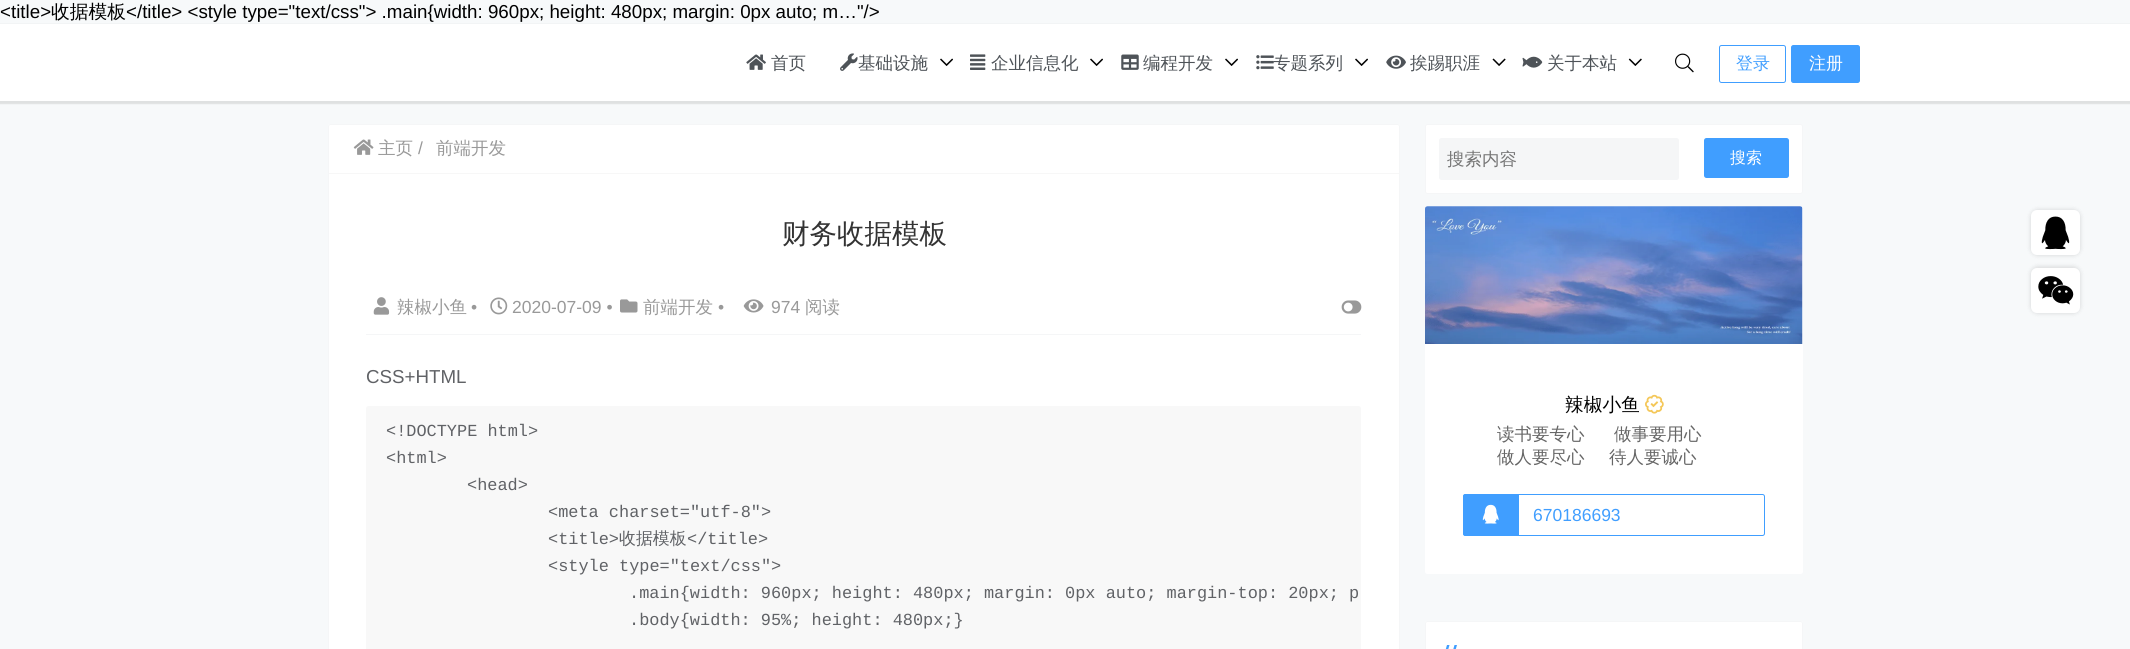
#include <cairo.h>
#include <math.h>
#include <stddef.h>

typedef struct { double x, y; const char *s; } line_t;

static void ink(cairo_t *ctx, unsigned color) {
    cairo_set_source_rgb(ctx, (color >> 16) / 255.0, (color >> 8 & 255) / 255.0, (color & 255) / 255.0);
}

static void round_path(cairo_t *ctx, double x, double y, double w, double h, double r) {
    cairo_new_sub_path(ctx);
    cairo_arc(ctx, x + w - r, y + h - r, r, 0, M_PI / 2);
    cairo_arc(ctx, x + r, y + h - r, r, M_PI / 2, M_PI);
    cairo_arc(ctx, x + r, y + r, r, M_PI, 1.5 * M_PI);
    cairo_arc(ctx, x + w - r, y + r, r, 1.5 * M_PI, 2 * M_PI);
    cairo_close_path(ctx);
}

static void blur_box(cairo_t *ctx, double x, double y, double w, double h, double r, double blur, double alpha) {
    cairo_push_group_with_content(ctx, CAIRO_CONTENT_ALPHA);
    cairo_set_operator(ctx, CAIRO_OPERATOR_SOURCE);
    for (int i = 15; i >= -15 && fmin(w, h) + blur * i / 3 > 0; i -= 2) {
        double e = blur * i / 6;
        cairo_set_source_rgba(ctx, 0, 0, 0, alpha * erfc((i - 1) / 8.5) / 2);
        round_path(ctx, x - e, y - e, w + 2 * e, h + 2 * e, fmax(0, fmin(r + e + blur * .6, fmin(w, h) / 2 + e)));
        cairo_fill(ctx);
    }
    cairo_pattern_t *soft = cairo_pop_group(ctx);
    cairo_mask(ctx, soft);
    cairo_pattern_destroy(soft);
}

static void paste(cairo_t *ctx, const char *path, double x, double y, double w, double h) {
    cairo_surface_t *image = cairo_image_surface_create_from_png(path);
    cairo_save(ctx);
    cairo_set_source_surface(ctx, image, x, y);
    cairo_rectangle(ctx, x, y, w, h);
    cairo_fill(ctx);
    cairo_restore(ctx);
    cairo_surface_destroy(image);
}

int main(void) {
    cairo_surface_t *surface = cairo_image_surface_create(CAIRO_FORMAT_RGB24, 2130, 649);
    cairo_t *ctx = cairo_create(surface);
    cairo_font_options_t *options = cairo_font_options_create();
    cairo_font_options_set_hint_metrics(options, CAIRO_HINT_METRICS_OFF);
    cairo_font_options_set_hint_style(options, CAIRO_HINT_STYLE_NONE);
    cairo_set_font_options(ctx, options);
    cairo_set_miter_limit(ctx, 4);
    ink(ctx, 0xF7F9FA);
    cairo_paint(ctx);
    cairo_select_font_face(ctx, "Liberation Sans", CAIRO_FONT_SLANT_NORMAL, CAIRO_FONT_WEIGHT_NORMAL);
    cairo_set_font_size(ctx, 18.75);
    ink(ctx, 0x000000);
    cairo_move_to(ctx, 0, 18);
    cairo_show_text(ctx, "<title>");
    cairo_select_font_face(ctx, "WenQuanYi Zen Hei Medium", CAIRO_FONT_SLANT_NORMAL, CAIRO_FONT_WEIGHT_NORMAL);
    cairo_move_to(ctx, 51, 18);
    cairo_show_text(ctx, "收据模板");
    cairo_select_font_face(ctx, "Liberation Sans", CAIRO_FONT_SLANT_NORMAL, CAIRO_FONT_WEIGHT_NORMAL);
    cairo_move_to(ctx, 126, 18);
    cairo_show_text(ctx, "</title> <style type=\"text/css\"> .main{width: 960px; height: 480px; margin: 0px auto; m…\"/>");
    ink(ctx, 0x000000);
    blur_box(ctx, -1, 24, 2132, 80, 0, 0.5, 0.1);
    ink(ctx, 0xFFFFFF);
    cairo_rectangle(ctx, 0, 24, 2130, 77);
    cairo_fill(ctx);
    paste(ctx, "media/1.png", 746, 54, 20, 16);
    cairo_select_font_face(ctx, "WenQuanYi Zen Hei Medium", CAIRO_FONT_SLANT_NORMAL, CAIRO_FONT_WEIGHT_NORMAL);
    cairo_set_font_size(ctx, 17.5);
    ink(ctx, 0x4E5358);
    cairo_move_to(ctx, 771, 69);
    cairo_show_text(ctx, "首页");
    paste(ctx, "media/2.png", 840, 53, 18, 18);
    cairo_move_to(ctx, 858, 69);
    cairo_show_text(ctx, "基础设施");
    paste(ctx, "media/3.png", 940, 58, 13, 8);
    paste(ctx, "media/4.png", 970, 54, 16, 16);
    cairo_move_to(ctx, 991, 69);
    cairo_show_text(ctx, "企业信息化");
    paste(ctx, "media/3.png", 1090, 58, 13, 8);
    paste(ctx, "media/5.png", 1121, 54, 18, 16);
    cairo_move_to(ctx, 1143, 69);
    cairo_show_text(ctx, "编程开发");
    paste(ctx, "media/3.png", 1225, 58, 13, 8);
    paste(ctx, "media/6.png", 1256, 55, 18, 15);
    cairo_move_to(ctx, 1273, 69);
    cairo_show_text(ctx, "专题系列");
    paste(ctx, "media/3.png", 1355, 58, 13, 8);
    paste(ctx, "media/7.png", 1386, 55, 20, 14);
    cairo_move_to(ctx, 1410, 69);
    cairo_show_text(ctx, "挨踢职涯");
    paste(ctx, "media/8.png", 1492, 58, 14, 8);
    paste(ctx, "media/9.png", 1522, 56, 21, 12);
    cairo_move_to(ctx, 1547, 69);
    cairo_show_text(ctx, "关于本站");
    paste(ctx, "media/10.png", 1628, 58, 14, 8);
    paste(ctx, "media/11.png", 1675, 53, 19, 20);
    round_path(ctx, 1719.5, 45.5, 66, 37, 2);
    ink(ctx, 0x409EFF);
    cairo_set_line_width(ctx, 1);
    cairo_stroke(ctx);
    cairo_set_font_size(ctx, 17);
    cairo_move_to(ctx, 1736, 69);
    cairo_show_text(ctx, "登录");
    round_path(ctx, 1791.5, 45.5, 68, 37, 2);
    cairo_fill_preserve(ctx);
    cairo_stroke(ctx);
    ink(ctx, 0xFFFFFF);
    cairo_move_to(ctx, 1809, 69);
    cairo_show_text(ctx, "注册");
    cairo_new_path(ctx);
    cairo_move_to(ctx, 330.5, 124);
    cairo_line_to(ctx, 1397.5, 124);
    cairo_curve_to(ctx, 1399, 124, 1400, 125, 1400, 126.5);
    cairo_line_to(ctx, 1400, 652);
    cairo_line_to(ctx, 328, 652);
    cairo_line_to(ctx, 328, 126.5);
    cairo_curve_to(ctx, 328, 125, 329, 124, 330.5, 124);
    cairo_close_path(ctx);
    cairo_fill(ctx);
    round_path(ctx, 328.5, 124.5, 1071, 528, 2);
    ink(ctx, 0xF5F6F7);
    cairo_stroke(ctx);
    ink(ctx, 0xF7F7F7);
    cairo_rectangle(ctx, 329, 173, 1070, 1);
    cairo_fill(ctx);
    paste(ctx, "media/12.png", 353, 139, 21, 16);
    cairo_set_font_size(ctx, 17.5);
    ink(ctx, 0x999999);
    cairo_move_to(ctx, 378, 154);
    cairo_show_text(ctx, "主页");
    cairo_select_font_face(ctx, "Liberation Sans", CAIRO_FONT_SLANT_NORMAL, CAIRO_FONT_WEIGHT_NORMAL);
    cairo_move_to(ctx, 418, 154);
    cairo_show_text(ctx, "/");
    cairo_select_font_face(ctx, "WenQuanYi Zen Hei Medium", CAIRO_FONT_SLANT_NORMAL, CAIRO_FONT_WEIGHT_NORMAL);
    cairo_move_to(ctx, 436, 154);
    cairo_show_text(ctx, "前端开发");
    cairo_set_font_size(ctx, 27.5);
    ink(ctx, 0x333333);
    cairo_move_to(ctx, 782, 243);
    cairo_show_text(ctx, "财务收据模板");
    ink(ctx, 0xF5F6F7);
    cairo_rectangle(ctx, 366, 334, 995, 1);
    cairo_fill(ctx);
    paste(ctx, "media/13.png", 373, 297, 17, 18);
    cairo_set_font_size(ctx, 17.5);
    ink(ctx, 0x999999);
    cairo_move_to(ctx, 397, 313);
    cairo_show_text(ctx, "辣椒小鱼");
    cairo_select_font_face(ctx, "Liberation Sans", CAIRO_FONT_SLANT_NORMAL, CAIRO_FONT_WEIGHT_NORMAL);
    cairo_move_to(ctx, 471, 313);
    cairo_show_text(ctx, "•");
    paste(ctx, "media/14.png", 490, 297, 18, 18);
    cairo_move_to(ctx, 512, 313);
    cairo_show_text(ctx, "2020-07-09 •");
    paste(ctx, "media/15.png", 620, 299, 18, 14);
    cairo_select_font_face(ctx, "WenQuanYi Zen Hei Medium", CAIRO_FONT_SLANT_NORMAL, CAIRO_FONT_WEIGHT_NORMAL);
    cairo_move_to(ctx, 643, 313);
    cairo_show_text(ctx, "前端开发");
    cairo_select_font_face(ctx, "Liberation Sans", CAIRO_FONT_SLANT_NORMAL, CAIRO_FONT_WEIGHT_NORMAL);
    cairo_move_to(ctx, 718, 313);
    cairo_show_text(ctx, "•");
    paste(ctx, "media/16.png", 743, 299, 21, 14);
    cairo_move_to(ctx, 771, 313);
    cairo_show_text(ctx, "974");
    cairo_select_font_face(ctx, "WenQuanYi Zen Hei Medium", CAIRO_FONT_SLANT_NORMAL, CAIRO_FONT_WEIGHT_NORMAL);
    cairo_move_to(ctx, 805, 313);
    cairo_show_text(ctx, "阅读");
    paste(ctx, "media/17.png", 1341, 300, 21, 14);
    cairo_select_font_face(ctx, "Liberation Sans", CAIRO_FONT_SLANT_NORMAL, CAIRO_FONT_WEIGHT_NORMAL);
    cairo_set_font_size(ctx, 18.75);
    ink(ctx, 0x606266);
    cairo_move_to(ctx, 366, 383);
    cairo_show_text(ctx, "CSS+HTML");
    ink(ctx, 0xF8F8F8);
    cairo_new_path(ctx);
    cairo_move_to(ctx, 368.5, 406);
    cairo_line_to(ctx, 1358.5, 406);
    cairo_curve_to(ctx, 1360, 406, 1361, 407, 1361, 408.5);
    cairo_line_to(ctx, 1361, 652);
    cairo_line_to(ctx, 366, 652);
    cairo_line_to(ctx, 366, 408.5);
    cairo_curve_to(ctx, 366, 407, 367, 406, 368.5, 406);
    cairo_close_path(ctx);
    cairo_fill(ctx);
    cairo_select_font_face(ctx, "Liberation Mono", CAIRO_FONT_SLANT_NORMAL, CAIRO_FONT_WEIGHT_NORMAL);
    cairo_set_font_size(ctx, 16.9);
    ink(ctx, 0x606266);
    {
        static const line_t items[] = {
            {386, 436, "<!DOCTYPE html>"},
            {386, 463, "<html>"},
            {467, 490, "<head>"},
            {548, 517, "<meta charset=\"utf-8\">"},
            {548, 544, "<title>"},
        };
        for (size_t i = 0; i < sizeof items / sizeof *items; i++) {
            cairo_move_to(ctx, items[i].x, items[i].y);
            cairo_show_text(ctx, items[i].s);
        }
    }
    cairo_select_font_face(ctx, "WenQuanYi Zen Hei Medium", CAIRO_FONT_SLANT_NORMAL, CAIRO_FONT_WEIGHT_NORMAL);
    cairo_move_to(ctx, 619, 544);
    cairo_show_text(ctx, "收据模板");
    cairo_select_font_face(ctx, "Liberation Mono", CAIRO_FONT_SLANT_NORMAL, CAIRO_FONT_WEIGHT_NORMAL);
    {
        static const line_t items[] = {
            {687, 544, "</title>"},
            {548, 571, "<style type=\"text/css\">"},
            {629, 598, ".main{width: 960px; height: 480px; margin: 0px auto; margin-top: 20px; p"},
            {629, 625, ".body{width: 95%; height: 480px;}"},
        };
        for (size_t i = 0; i < sizeof items / sizeof *items; i++) {
            cairo_move_to(ctx, items[i].x, items[i].y);
            cairo_show_text(ctx, items[i].s);
        }
    }
    ink(ctx, 0xFFFFFF);
    round_path(ctx, 1425.5, 124.5, 377, 69, 2);
    cairo_fill_preserve(ctx);
    ink(ctx, 0xF5F6F7);
    cairo_stroke(ctx);
    round_path(ctx, 1439, 138, 240, 42, 2.5);
    cairo_fill(ctx);
    cairo_select_font_face(ctx, "WenQuanYi Zen Hei Medium", CAIRO_FONT_SLANT_NORMAL, CAIRO_FONT_WEIGHT_NORMAL);
    cairo_set_font_size(ctx, 17.5);
    ink(ctx, 0x757575);
    cairo_move_to(ctx, 1447, 165);
    cairo_show_text(ctx, "搜索内容");
    ink(ctx, 0x409EFF);
    round_path(ctx, 1704, 138, 85, 40, 2.5);
    cairo_fill(ctx);
    cairo_set_font_size(ctx, 16);
    ink(ctx, 0xFFFFFF);
    cairo_move_to(ctx, 1730, 163);
    cairo_show_text(ctx, "搜索");
    round_path(ctx, 1425, 206, 378, 368, 2.5);
    cairo_fill(ctx);
    paste(ctx, "media/18.png", 1425, 206, 378, 138);
    cairo_set_font_size(ctx, 18.75);
    ink(ctx, 0x000000);
    cairo_move_to(ctx, 1565, 411);
    cairo_show_text(ctx, "辣椒小鱼");
    paste(ctx, "media/19.png", 1645, 394, 19, 20);
    cairo_set_font_size(ctx, 17.5);
    ink(ctx, 0x666666);
    {
        static const line_t items[] = {
            {1497, 440, "读书要专心"},
            {1614, 440, "做事要用心"},
            {1497, 463, "做人要尽心"},
            {1609, 463, "待人要诚心"},
        };
        for (size_t i = 0; i < sizeof items / sizeof *items; i++) {
            cairo_move_to(ctx, items[i].x, items[i].y);
            cairo_show_text(ctx, items[i].s);
        }
    }
    round_path(ctx, 1463.5, 494.5, 301, 41, 2);
    ink(ctx, 0x409EFF);
    cairo_stroke(ctx);
    cairo_new_path(ctx);
    cairo_move_to(ctx, 1465.5, 494);
    cairo_line_to(ctx, 1519, 494);
    cairo_line_to(ctx, 1519, 536);
    cairo_line_to(ctx, 1465.5, 536);
    cairo_curve_to(ctx, 1464, 536, 1463, 535, 1463, 533.5);
    cairo_line_to(ctx, 1463, 496.5);
    cairo_curve_to(ctx, 1463, 495, 1464, 494, 1465.5, 494);
    cairo_close_path(ctx);
    cairo_fill(ctx);
    paste(ctx, "media/20.png", 1482, 504, 17, 20);
    cairo_select_font_face(ctx, "Liberation Sans", CAIRO_FONT_SLANT_NORMAL, CAIRO_FONT_WEIGHT_NORMAL);
    cairo_move_to(ctx, 1533, 521);
    cairo_show_text(ctx, "670186693");
    ink(ctx, 0xFFFFFF);
    cairo_new_path(ctx);
    cairo_move_to(ctx, 1427.5, 621);
    cairo_line_to(ctx, 1800.5, 621);
    cairo_curve_to(ctx, 1802, 621, 1803, 622, 1803, 623.5);
    cairo_line_to(ctx, 1803, 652);
    cairo_line_to(ctx, 1425, 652);
    cairo_line_to(ctx, 1425, 623.5);
    cairo_curve_to(ctx, 1425, 622, 1426, 621, 1427.5, 621);
    cairo_close_path(ctx);
    cairo_fill(ctx);
    round_path(ctx, 1425.5, 621.5, 377, 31, 2);
    ink(ctx, 0xF5F6F7);
    cairo_stroke(ctx);
    ink(ctx, 0x409EFF);
    cairo_new_path(ctx);
    cairo_move_to(ctx, 1447, 645);
    cairo_line_to(ctx, 1449.5, 645);
    cairo_line_to(ctx, 1444, 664);
    cairo_line_to(ctx, 1441.5, 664);
    cairo_close_path(ctx);
    cairo_move_to(ctx, 1454.5, 645);
    cairo_line_to(ctx, 1457, 645);
    cairo_line_to(ctx, 1451.5, 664);
    cairo_line_to(ctx, 1449, 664);
    cairo_close_path(ctx);
    cairo_fill(ctx);
    ink(ctx, 0x000000);
    blur_box(ctx, 2030, 209, 51, 47, 8, 2, 0.1);
    ink(ctx, 0xFFFFFF);
    round_path(ctx, 2031, 210, 49, 45, 6);
    cairo_fill(ctx);
    paste(ctx, "media/21.png", 2041, 216, 29, 34);
    ink(ctx, 0x000000);
    blur_box(ctx, 2030, 266, 51, 48, 8, 2, 0.1);
    ink(ctx, 0xFFFFFF);
    round_path(ctx, 2031, 268, 49, 45, 6);
    cairo_fill(ctx);
    paste(ctx, "media/22.png", 2038, 276, 36, 29);
    cairo_surface_write_to_png(surface, "image.png");
    cairo_font_options_destroy(options);
    cairo_destroy(ctx);
    cairo_surface_destroy(surface);
    return 0;
}
